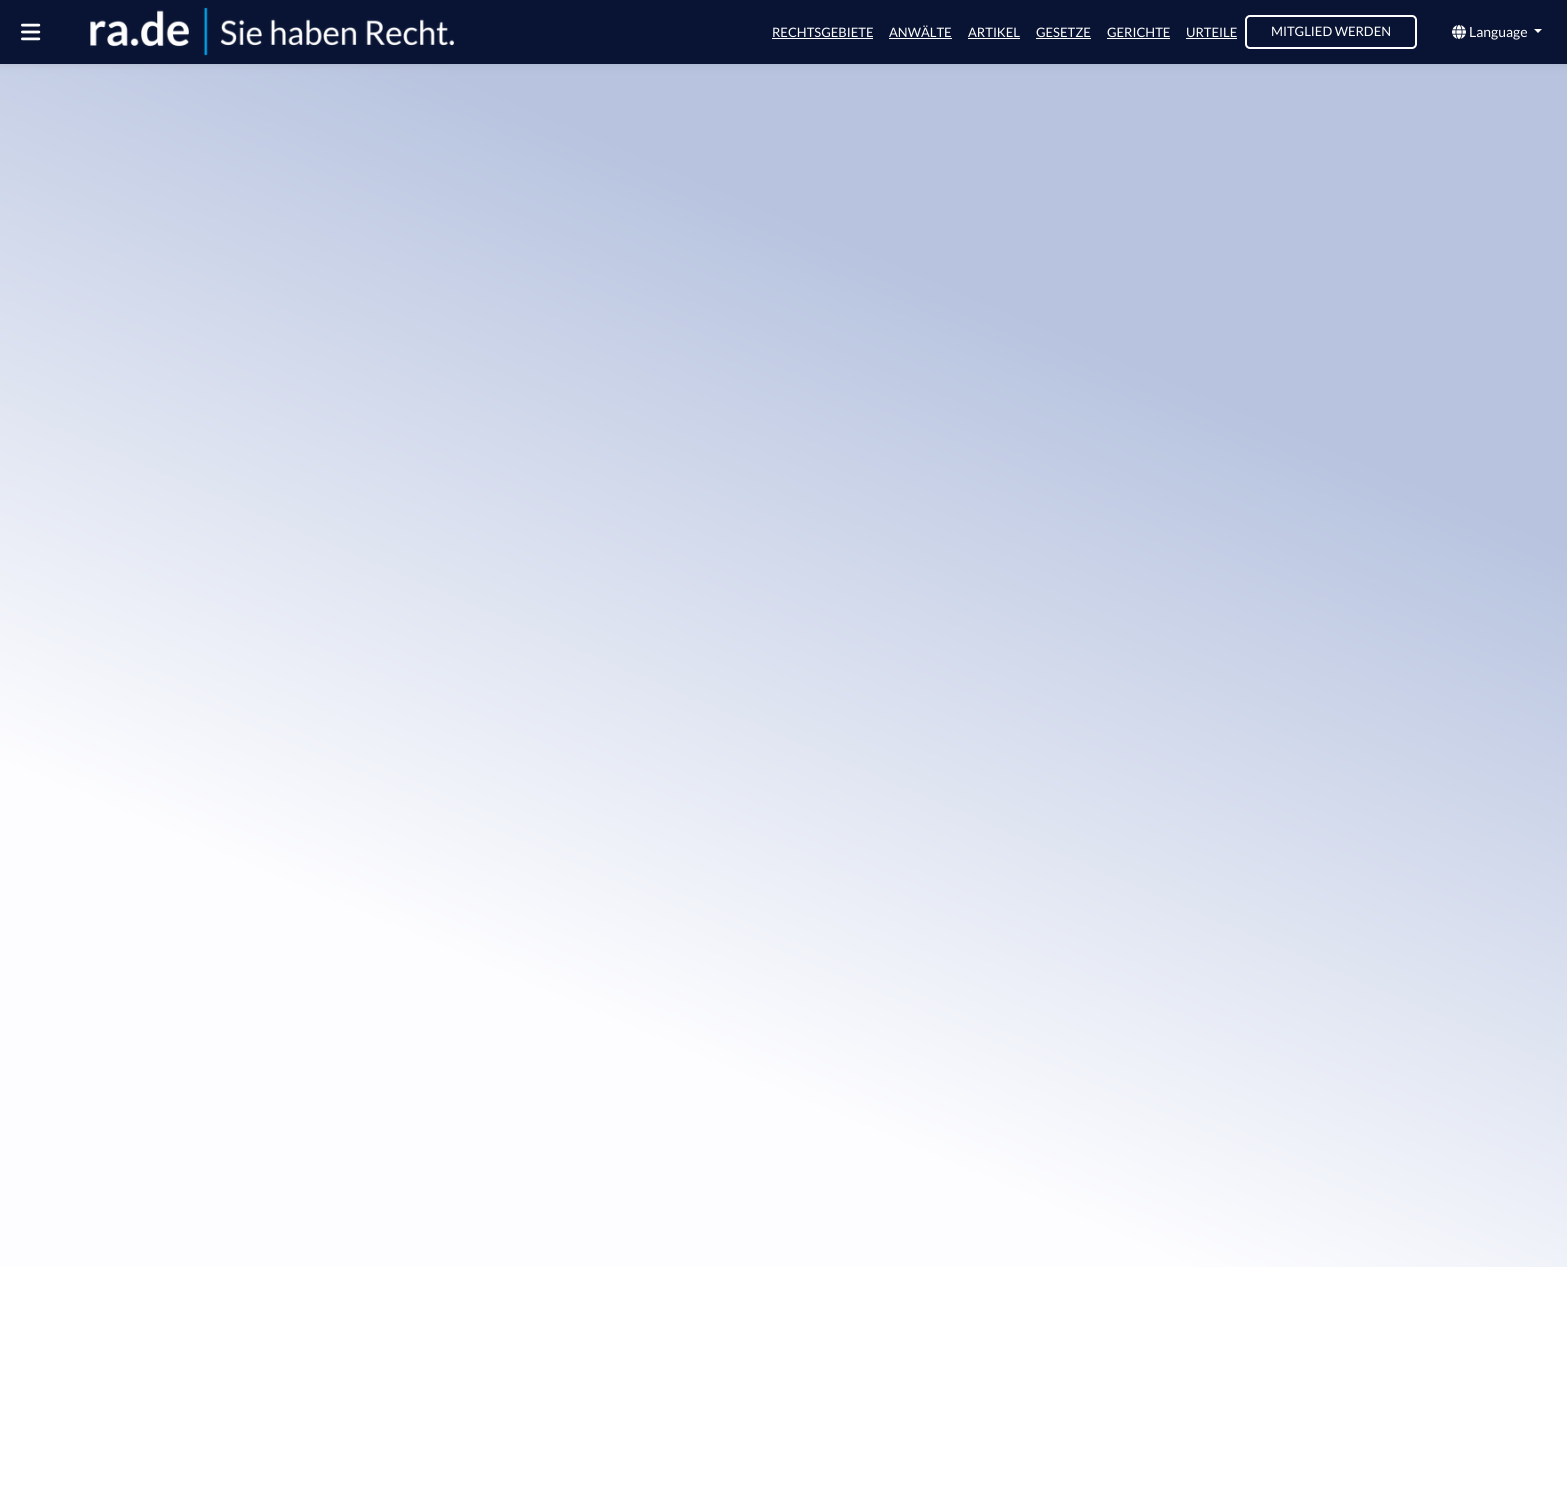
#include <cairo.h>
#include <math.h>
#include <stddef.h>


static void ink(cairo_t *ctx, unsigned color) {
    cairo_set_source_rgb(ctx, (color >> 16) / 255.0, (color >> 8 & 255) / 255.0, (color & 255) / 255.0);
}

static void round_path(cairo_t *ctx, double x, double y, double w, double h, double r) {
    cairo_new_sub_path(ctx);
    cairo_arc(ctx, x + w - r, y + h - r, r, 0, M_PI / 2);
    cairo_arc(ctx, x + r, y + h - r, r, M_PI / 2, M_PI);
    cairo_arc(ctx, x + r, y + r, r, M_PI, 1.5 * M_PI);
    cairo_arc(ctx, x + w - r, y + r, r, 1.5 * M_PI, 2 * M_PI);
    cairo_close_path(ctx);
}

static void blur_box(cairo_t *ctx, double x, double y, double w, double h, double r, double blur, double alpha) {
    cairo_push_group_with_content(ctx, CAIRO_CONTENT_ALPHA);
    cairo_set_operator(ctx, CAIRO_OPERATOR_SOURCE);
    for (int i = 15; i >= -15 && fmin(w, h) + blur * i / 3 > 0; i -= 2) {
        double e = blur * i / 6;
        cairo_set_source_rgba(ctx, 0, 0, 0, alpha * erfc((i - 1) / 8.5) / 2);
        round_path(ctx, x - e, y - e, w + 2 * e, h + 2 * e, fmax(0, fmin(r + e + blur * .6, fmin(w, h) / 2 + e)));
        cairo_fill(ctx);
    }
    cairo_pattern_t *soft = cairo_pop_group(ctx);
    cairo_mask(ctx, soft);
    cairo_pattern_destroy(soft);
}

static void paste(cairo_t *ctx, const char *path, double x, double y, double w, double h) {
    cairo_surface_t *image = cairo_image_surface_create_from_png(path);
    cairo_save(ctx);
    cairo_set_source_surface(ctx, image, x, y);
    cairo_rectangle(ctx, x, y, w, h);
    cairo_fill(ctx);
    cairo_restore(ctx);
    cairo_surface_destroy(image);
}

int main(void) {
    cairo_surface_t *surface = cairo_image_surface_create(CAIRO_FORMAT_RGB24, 1567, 1504);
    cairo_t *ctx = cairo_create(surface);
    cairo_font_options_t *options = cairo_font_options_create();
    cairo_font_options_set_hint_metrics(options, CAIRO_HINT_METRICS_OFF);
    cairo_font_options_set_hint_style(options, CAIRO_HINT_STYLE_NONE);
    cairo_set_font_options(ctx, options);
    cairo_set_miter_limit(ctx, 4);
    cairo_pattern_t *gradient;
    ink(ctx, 0xFFFFFF);
    cairo_paint(ctx);
    gradient = cairo_pattern_create_linear(1131, -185, 436, 1452);
    cairo_pattern_add_color_stop_rgba(gradient, 0.28, 0.718, 0.765, 0.875, 1);
    cairo_pattern_add_color_stop_rgba(gradient, 0.74, 0.992, 0.992, 1, 1);
    cairo_set_source(ctx, gradient);
    cairo_pattern_destroy(gradient);
    cairo_rectangle(ctx, 0, 64, 1567, 1203);
    cairo_fill(ctx);
    ink(ctx, 0x7A7A7A);
    blur_box(ctx, 0, 0, 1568, 65, 0, 4, 0.2);
    ink(ctx, 0x091434);
    cairo_rectangle(ctx, 0, 0, 1567, 64);
    cairo_fill(ctx);
    paste(ctx, "media/1.png", 21, 23, 20, 18);
    paste(ctx, "media/2.png", 90, 7, 365, 49);
    cairo_select_font_face(ctx, "Lato", CAIRO_FONT_SLANT_NORMAL, CAIRO_FONT_WEIGHT_NORMAL);
    cairo_set_font_size(ctx, 13);
    ink(ctx, 0xFFFFFF);
    cairo_move_to(ctx, 772, 37);
    cairo_show_text(ctx, "RECHTSGEBIETE");
    cairo_rectangle(ctx, 772, 38, 101, 1);
    cairo_fill(ctx);
    cairo_move_to(ctx, 889, 37);
    cairo_show_text(ctx, "ANWÄLTE");
    cairo_rectangle(ctx, 889, 38, 63, 1);
    cairo_fill(ctx);
    cairo_move_to(ctx, 968, 37);
    cairo_show_text(ctx, "ARTIKEL");
    cairo_rectangle(ctx, 968, 38, 52, 1);
    cairo_fill(ctx);
    cairo_move_to(ctx, 1036, 37);
    cairo_show_text(ctx, "GESETZE");
    cairo_rectangle(ctx, 1036, 38, 55, 1);
    cairo_fill(ctx);
    cairo_move_to(ctx, 1107, 37);
    cairo_show_text(ctx, "GERICHTE");
    cairo_rectangle(ctx, 1107, 38, 63, 1);
    cairo_fill(ctx);
    cairo_move_to(ctx, 1186, 37);
    cairo_show_text(ctx, "URTEILE");
    cairo_rectangle(ctx, 1186, 38, 51, 1);
    cairo_fill(ctx);
    round_path(ctx, 1246, 16, 170, 32, 4);
    cairo_stroke(ctx);
    cairo_move_to(ctx, 1271, 36);
    cairo_show_text(ctx, "MITGLIED WERDEN");
    paste(ctx, "media/3.png", 1452, 25, 14, 14);
    cairo_set_font_size(ctx, 14);
    cairo_move_to(ctx, 1469, 37);
    cairo_show_text(ctx, "Language");
    cairo_new_path(ctx);
    cairo_move_to(ctx, 1534, 29);
    cairo_line_to(ctx, 1542, 29);
    cairo_line_to(ctx, 1538, 33);
    cairo_close_path(ctx);
    cairo_fill(ctx);
    cairo_surface_write_to_png(surface, "image.png");
    cairo_font_options_destroy(options);
    cairo_destroy(ctx);
    cairo_surface_destroy(surface);
    return 0;
}
